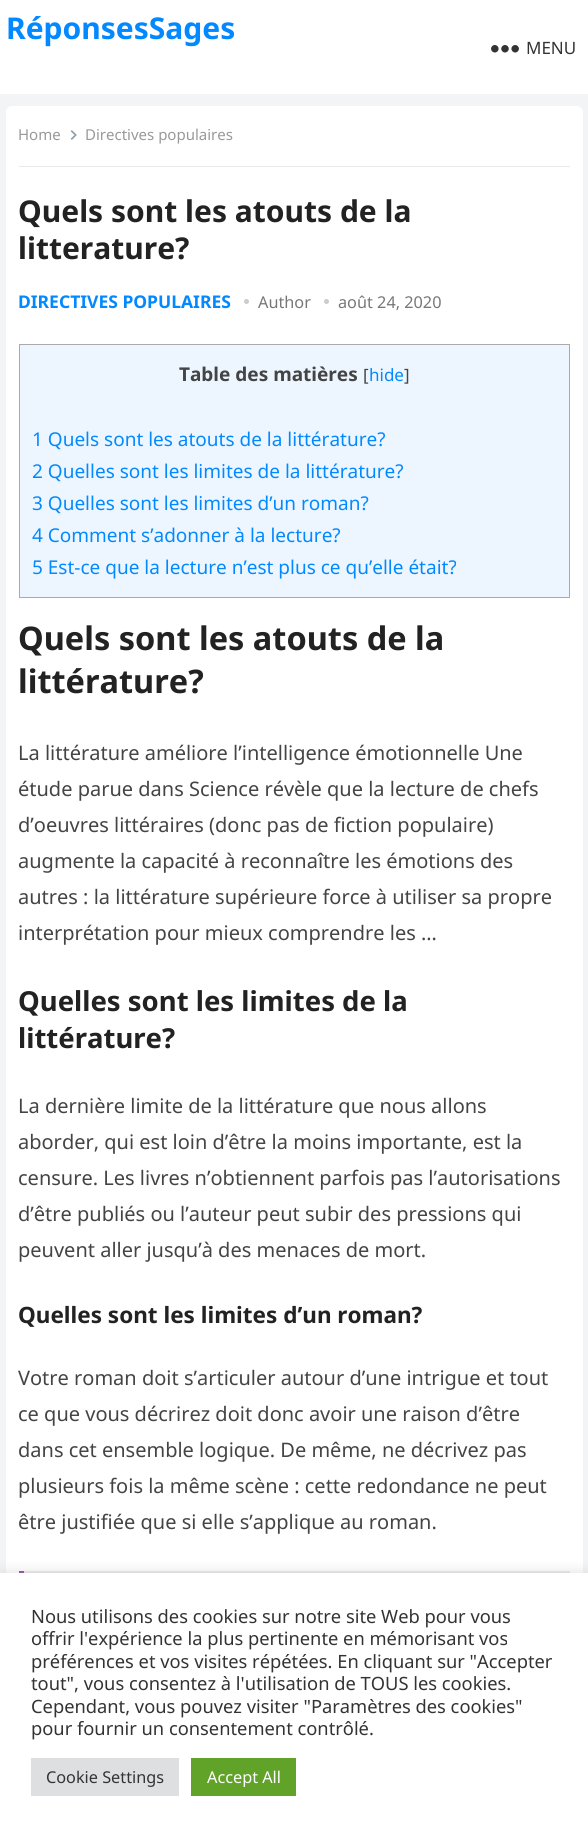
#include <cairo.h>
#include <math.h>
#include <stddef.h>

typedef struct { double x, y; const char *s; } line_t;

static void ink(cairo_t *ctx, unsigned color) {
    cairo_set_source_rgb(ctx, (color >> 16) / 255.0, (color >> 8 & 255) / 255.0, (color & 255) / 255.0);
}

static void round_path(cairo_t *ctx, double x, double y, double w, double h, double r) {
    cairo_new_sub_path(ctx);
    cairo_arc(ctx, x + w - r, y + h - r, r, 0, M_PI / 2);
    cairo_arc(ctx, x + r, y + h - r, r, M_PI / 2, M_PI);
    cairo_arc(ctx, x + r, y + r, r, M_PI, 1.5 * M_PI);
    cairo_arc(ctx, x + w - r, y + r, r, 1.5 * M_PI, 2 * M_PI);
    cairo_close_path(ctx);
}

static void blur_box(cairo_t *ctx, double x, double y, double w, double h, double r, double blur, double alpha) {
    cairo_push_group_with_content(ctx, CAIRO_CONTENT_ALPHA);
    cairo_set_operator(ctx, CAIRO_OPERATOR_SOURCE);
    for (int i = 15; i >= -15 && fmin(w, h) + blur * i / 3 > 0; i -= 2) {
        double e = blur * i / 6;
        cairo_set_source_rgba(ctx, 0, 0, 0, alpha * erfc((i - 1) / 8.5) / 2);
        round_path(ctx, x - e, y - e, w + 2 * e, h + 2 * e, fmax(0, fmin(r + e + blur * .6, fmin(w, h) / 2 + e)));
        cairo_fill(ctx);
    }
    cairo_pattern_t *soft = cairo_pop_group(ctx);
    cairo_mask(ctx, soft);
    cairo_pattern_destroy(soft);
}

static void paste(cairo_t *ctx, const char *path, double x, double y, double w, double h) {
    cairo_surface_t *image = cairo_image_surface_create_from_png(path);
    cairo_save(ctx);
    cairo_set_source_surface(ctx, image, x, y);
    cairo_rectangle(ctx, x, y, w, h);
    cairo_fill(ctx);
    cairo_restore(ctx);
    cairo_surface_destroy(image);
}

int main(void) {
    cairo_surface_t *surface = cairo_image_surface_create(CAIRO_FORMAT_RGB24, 588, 1833);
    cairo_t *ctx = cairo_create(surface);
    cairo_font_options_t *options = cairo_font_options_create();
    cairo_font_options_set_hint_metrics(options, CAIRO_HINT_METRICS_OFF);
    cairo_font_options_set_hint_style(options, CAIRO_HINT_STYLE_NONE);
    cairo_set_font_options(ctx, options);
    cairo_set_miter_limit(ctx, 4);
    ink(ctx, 0xF3F4F5);
    cairo_paint(ctx);
    ink(ctx, 0xFFFFFF);
    cairo_rectangle(ctx, 0, 0, 588, 94);
    cairo_fill(ctx);
    cairo_select_font_face(ctx, "Noto Sans", CAIRO_FONT_SLANT_NORMAL, CAIRO_FONT_WEIGHT_BOLD);
    cairo_set_font_size(ctx, 30);
    ink(ctx, 0x0389FF);
    cairo_move_to(ctx, 6, 39);
    cairo_show_text(ctx, "RéponsesSages");
    paste(ctx, "media/1.png", 491, 45, 28, 8);
    cairo_select_font_face(ctx, "Noto Sans", CAIRO_FONT_SLANT_NORMAL, CAIRO_FONT_WEIGHT_NORMAL);
    cairo_set_font_size(ctx, 17);
    ink(ctx, 0x333333);
    cairo_move_to(ctx, 526, 54);
    cairo_show_text(ctx, "MENU");
    ink(ctx, 0xFFFFFF);
    round_path(ctx, 6, 106, 577, 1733, 6);
    cairo_fill(ctx);
    ink(ctx, 0xE9E9E9);
    cairo_rectangle(ctx, 19, 166, 551, 1);
    cairo_fill(ctx);
    cairo_set_font_size(ctx, 15);
    ink(ctx, 0x999999);
    cairo_move_to(ctx, 18, 140);
    cairo_show_text(ctx, "Home");
    paste(ctx, "media/2.png", 70, 130, 7, 10);
    cairo_move_to(ctx, 85, 140);
    cairo_show_text(ctx, "Directives populaires");
    cairo_select_font_face(ctx, "Noto Sans", CAIRO_FONT_SLANT_NORMAL, CAIRO_FONT_WEIGHT_BOLD);
    cairo_set_font_size(ctx, 30);
    ink(ctx, 0x222222);
    cairo_move_to(ctx, 18, 222);
    cairo_show_text(ctx, "Quels sont les atouts de la");
    cairo_move_to(ctx, 18, 259);
    cairo_show_text(ctx, "litterature?");
    cairo_set_font_size(ctx, 17.5);
    ink(ctx, 0x0389FF);
    cairo_move_to(ctx, 18, 308);
    cairo_show_text(ctx, "DIRECTIVES POPULAIRES");
    ink(ctx, 0xCCCCCC);
    cairo_new_path(ctx);
    cairo_arc(ctx, 246.5, 301.5, 2.5, 0, 2 * M_PI);
    cairo_fill(ctx);
    cairo_select_font_face(ctx, "Noto Sans", CAIRO_FONT_SLANT_NORMAL, CAIRO_FONT_WEIGHT_NORMAL);
    cairo_set_font_size(ctx, 16.25);
    ink(ctx, 0x777777);
    cairo_move_to(ctx, 258, 308);
    cairo_show_text(ctx, "Author");
    ink(ctx, 0xCCCCCC);
    cairo_new_path(ctx);
    cairo_arc(ctx, 326.5, 301.5, 2.5, 0, 2 * M_PI);
    cairo_fill(ctx);
    ink(ctx, 0x777777);
    cairo_move_to(ctx, 338, 308);
    cairo_show_text(ctx, "août 24, 2020");
    ink(ctx, 0xEDF6FF);
    cairo_rectangle(ctx, 19.5, 344.5, 550, 253);
    cairo_fill_preserve(ctx);
    ink(ctx, 0xAAAAAA);
    cairo_set_line_width(ctx, 1);
    cairo_stroke(ctx);
    cairo_select_font_face(ctx, "Noto Sans", CAIRO_FONT_SLANT_NORMAL, CAIRO_FONT_WEIGHT_BOLD);
    cairo_set_font_size(ctx, 19);
    ink(ctx, 0x444444);
    cairo_move_to(ctx, 179, 381);
    cairo_show_text(ctx, "Table des matières");
    cairo_select_font_face(ctx, "Noto Sans", CAIRO_FONT_SLANT_NORMAL, CAIRO_FONT_WEIGHT_NORMAL);
    cairo_set_font_size(ctx, 17);
    cairo_move_to(ctx, 363, 381);
    cairo_show_text(ctx, "[");
    ink(ctx, 0x0389FF);
    cairo_move_to(ctx, 369, 381);
    cairo_show_text(ctx, "hide");
    ink(ctx, 0x444444);
    cairo_move_to(ctx, 404, 381);
    cairo_show_text(ctx, "]");
    cairo_set_font_size(ctx, 19);
    ink(ctx, 0x0389FF);
    {
        static const line_t items[] = {
            {32, 446, "1 Quels sont les atouts de la littérature?"},
            {32, 478, "2 Quelles sont les limites de la littérature?"},
            {32, 510, "3 Quelles sont les limites d’un roman?"},
            {32, 542, "4 Comment s’adonner à la lecture?"},
            {32, 574, "5 Est-ce que la lecture n’est plus ce qu’elle était?"},
        };
        for (size_t i = 0; i < sizeof items / sizeof *items; i++) {
            cairo_move_to(ctx, items[i].x, items[i].y);
            cairo_show_text(ctx, items[i].s);
        }
    }
    cairo_select_font_face(ctx, "Noto Sans", CAIRO_FONT_SLANT_NORMAL, CAIRO_FONT_WEIGHT_BOLD);
    cairo_set_font_size(ctx, 32.5);
    ink(ctx, 0x222222);
    cairo_move_to(ctx, 18, 650);
    cairo_show_text(ctx, "Quels sont les atouts de la");
    cairo_move_to(ctx, 18, 693);
    cairo_show_text(ctx, "littérature?");
    cairo_select_font_face(ctx, "Noto Sans", CAIRO_FONT_SLANT_NORMAL, CAIRO_FONT_WEIGHT_NORMAL);
    cairo_set_font_size(ctx, 20);
    ink(ctx, 0x444444);
    {
        static const line_t items[] = {
            {18, 760, "La littérature améliore l’intelligence émotionnelle Une"},
            {18, 796, "étude parue dans Science révèle que la lecture de chefs"},
            {18, 832, "d’oeuvres littéraires (donc pas de fiction populaire)"},
            {18, 868, "augmente la capacité à reconnaître les émotions des"},
            {18, 904, "autres : la littérature supérieure force à utiliser sa propre"},
            {18, 940, "interprétation pour mieux comprendre les …"},
        };
        for (size_t i = 0; i < sizeof items / sizeof *items; i++) {
            cairo_move_to(ctx, items[i].x, items[i].y);
            cairo_show_text(ctx, items[i].s);
        }
    }
    cairo_select_font_face(ctx, "Noto Sans", CAIRO_FONT_SLANT_NORMAL, CAIRO_FONT_WEIGHT_BOLD);
    cairo_set_font_size(ctx, 27.5);
    ink(ctx, 0x222222);
    cairo_move_to(ctx, 18, 1011);
    cairo_show_text(ctx, "Quelles sont les limites de la");
    cairo_move_to(ctx, 18, 1048);
    cairo_show_text(ctx, "littérature?");
    cairo_select_font_face(ctx, "Noto Sans", CAIRO_FONT_SLANT_NORMAL, CAIRO_FONT_WEIGHT_NORMAL);
    cairo_set_font_size(ctx, 20);
    ink(ctx, 0x444444);
    {
        static const line_t items[] = {
            {18, 1113, "La dernière limite de la littérature que nous allons"},
            {18, 1149, "aborder, qui est loin d’être la moins importante, est la"},
            {18, 1185, "censure. Les livres n’obtiennent parfois pas l’autorisations"},
            {18, 1221, "d’être publiés ou l’auteur peut subir des pressions qui"},
            {18, 1257, "peuvent aller jusqu’à des menaces de mort."},
        };
        for (size_t i = 0; i < sizeof items / sizeof *items; i++) {
            cairo_move_to(ctx, items[i].x, items[i].y);
            cairo_show_text(ctx, items[i].s);
        }
    }
    cairo_select_font_face(ctx, "Noto Sans", CAIRO_FONT_SLANT_NORMAL, CAIRO_FONT_WEIGHT_BOLD);
    cairo_set_font_size(ctx, 22.5);
    ink(ctx, 0x222222);
    cairo_move_to(ctx, 18, 1323);
    cairo_show_text(ctx, "Quelles sont les limites d’un roman?");
    cairo_select_font_face(ctx, "Noto Sans", CAIRO_FONT_SLANT_NORMAL, CAIRO_FONT_WEIGHT_NORMAL);
    cairo_set_font_size(ctx, 20);
    ink(ctx, 0x444444);
    {
        static const line_t items[] = {
            {18, 1385, "Votre roman doit s’articuler autour d’une intrigue et tout"},
            {18, 1421, "ce que vous décrirez doit donc avoir une raison d’être"},
            {18, 1457, "dans cet ensemble logique. De même, ne décrivez pas"},
            {18, 1493, "plusieurs fois la même scène : cette redondance ne peut"},
            {18, 1529, "être justifiée que si elle s’applique au roman."},
        };
        for (size_t i = 0; i < sizeof items / sizeof *items; i++) {
            cairo_move_to(ctx, items[i].x, items[i].y);
            cairo_show_text(ctx, items[i].s);
        }
    }
    ink(ctx, 0xEAEAEA);
    cairo_rectangle(ctx, 24, 1571, 546, 2);
    cairo_fill(ctx);
    ink(ctx, 0x8E44AD);
    cairo_rectangle(ctx, 19, 1571, 5, 2);
    cairo_fill(ctx);
    ink(ctx, 0xACABAB);
    blur_box(ctx, 0, 1571, 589, 262, 0, 6, 0.3);
    ink(ctx, 0xFFFFFF);
    cairo_rectangle(ctx, 0, 1573, 588, 260);
    cairo_fill(ctx);
    cairo_set_font_size(ctx, 18.3);
    ink(ctx, 0x333333);
    {
        static const line_t items[] = {
            {31, 1623, "Nous utilisons des cookies sur notre site Web pour vous"},
            {31, 1645, "offrir l'expérience la plus pertinente en mémorisant vos"},
            {31, 1668, "préférences et vos visites répétées. En cliquant sur \"Accepter"},
            {31, 1690, "tout\", vous consentez à l'utilisation de TOUS les cookies."},
            {31, 1713, "Cependant, vous pouvez visiter \"Paramètres des cookies\""},
            {31, 1735, "pour fournir un consentement contrôlé."},
        };
        for (size_t i = 0; i < sizeof items / sizeof *items; i++) {
            cairo_move_to(ctx, items[i].x, items[i].y);
            cairo_show_text(ctx, items[i].s);
        }
    }
    ink(ctx, 0xDEDFE0);
    cairo_rectangle(ctx, 31, 1758, 148, 38);
    cairo_fill(ctx);
    cairo_set_font_size(ctx, 16.25);
    ink(ctx, 0x333333);
    cairo_move_to(ctx, 46, 1783);
    cairo_show_text(ctx, "Cookie Settings");
    ink(ctx, 0x61A229);
    cairo_rectangle(ctx, 191, 1758, 105, 38);
    cairo_fill(ctx);
    ink(ctx, 0xFFFFFF);
    cairo_move_to(ctx, 207, 1783);
    cairo_show_text(ctx, "Accept All");
    cairo_surface_write_to_png(surface, "image.png");
    cairo_font_options_destroy(options);
    cairo_destroy(ctx);
    cairo_surface_destroy(surface);
    return 0;
}
